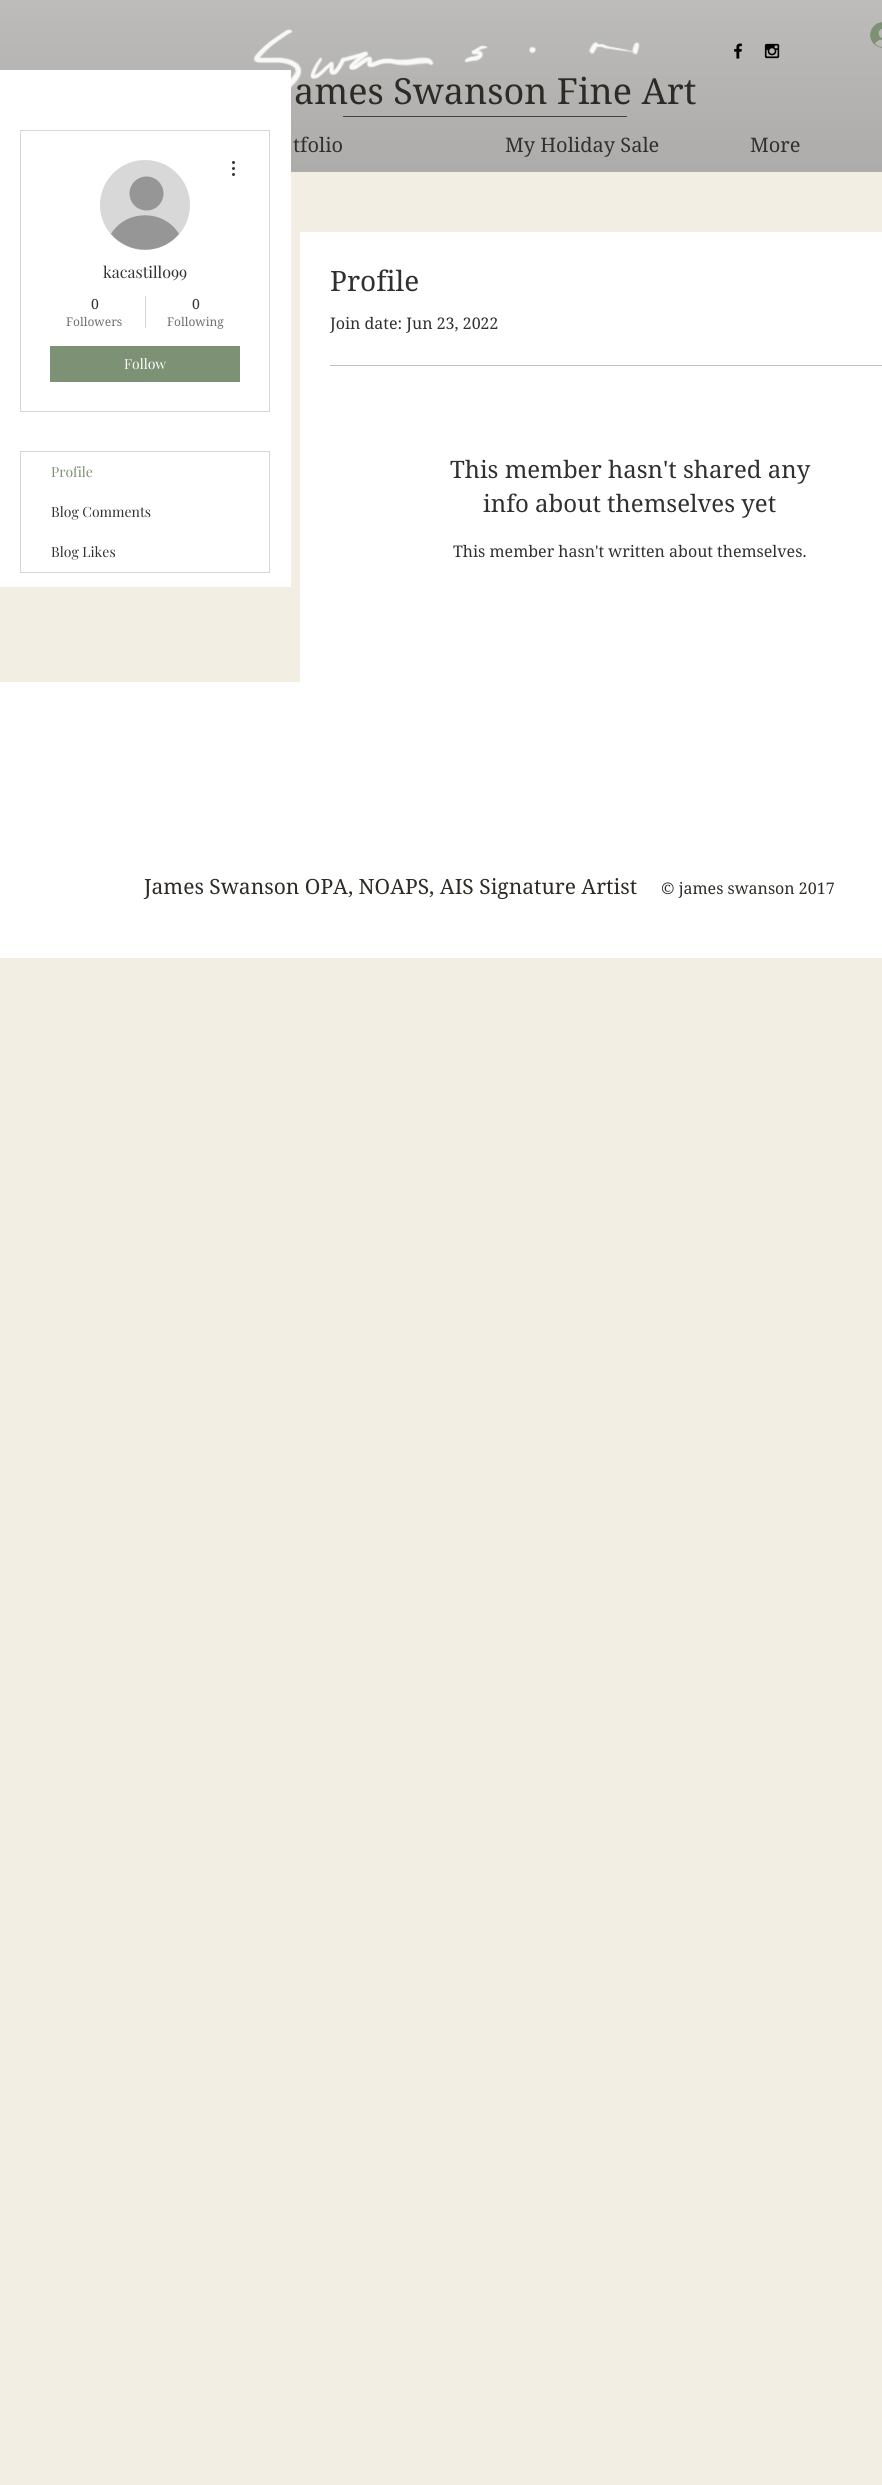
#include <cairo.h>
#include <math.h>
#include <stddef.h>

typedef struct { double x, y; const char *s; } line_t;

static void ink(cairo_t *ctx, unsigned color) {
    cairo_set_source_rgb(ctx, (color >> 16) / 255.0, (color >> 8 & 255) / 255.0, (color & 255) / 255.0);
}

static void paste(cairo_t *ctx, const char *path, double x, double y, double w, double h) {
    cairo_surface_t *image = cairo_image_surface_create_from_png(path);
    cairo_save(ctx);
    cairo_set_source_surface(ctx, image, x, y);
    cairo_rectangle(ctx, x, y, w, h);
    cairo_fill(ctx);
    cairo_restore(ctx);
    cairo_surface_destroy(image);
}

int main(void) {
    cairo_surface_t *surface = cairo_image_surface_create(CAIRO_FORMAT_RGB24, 882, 2485);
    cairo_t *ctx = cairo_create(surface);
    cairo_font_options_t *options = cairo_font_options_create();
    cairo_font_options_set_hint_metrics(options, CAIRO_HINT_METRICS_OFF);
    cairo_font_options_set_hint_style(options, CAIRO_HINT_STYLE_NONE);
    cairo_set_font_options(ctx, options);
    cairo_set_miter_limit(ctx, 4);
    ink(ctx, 0xF2EEE4);
    cairo_paint(ctx);
    ink(ctx, 0xA5A4A2);
    cairo_rectangle(ctx, 0, 0, 882, 172);
    cairo_fill(ctx);
    paste(ctx, "media/3.png", 0, 0, 882, 172);
    paste(ctx, "media/1.png", 734, 43, 9, 16);
    paste(ctx, "media/2.png", 764, 43, 16, 16);
    paste(ctx, "media/4.png", 870, 22, 12, 26);
    paste(ctx, "media/5.png", 253, 29, 387, 60);
    cairo_select_font_face(ctx, "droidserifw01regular", CAIRO_FONT_SLANT_NORMAL, CAIRO_FONT_WEIGHT_NORMAL);
    cairo_set_font_size(ctx, 36);
    ink(ctx, 0x2E2B26);
    cairo_move_to(ctx, 294, 104);
    cairo_show_text(ctx, "ames Swanson Fine Art");
    ink(ctx, 0x424242);
    cairo_rectangle(ctx, 343, 116, 284, 1);
    cairo_fill(ctx);
    cairo_set_font_size(ctx, 20);
    ink(ctx, 0x303030);
    {
        static const line_t items[] = {
            {293, 152, "tfolio"},
            {505, 152, "My Holiday Sale"},
            {750, 152, "More"},
        };
        for (size_t i = 0; i < sizeof items / sizeof *items; i++) {
            cairo_move_to(ctx, items[i].x, items[i].y);
            cairo_show_text(ctx, items[i].s);
        }
    }
    ink(ctx, 0xFFFFFF);
    cairo_rectangle(ctx, 0, 70, 291, 517);
    cairo_fill(ctx);
    cairo_rectangle(ctx, 20.5, 130.5, 249, 281);
    ink(ctx, 0xD6D6D6);
    cairo_set_line_width(ctx, 1);
    cairo_stroke(ctx);
    ink(ctx, 0xD8D8D8);
    cairo_arc(ctx, 145, 205, 45, 0, 2 * M_PI);
    cairo_fill(ctx);
    ink(ctx, 0x969696);
    cairo_arc(ctx, 146.5, 193.5, 17, 0, 2 * M_PI);
    cairo_fill(ctx);
    cairo_new_path(ctx);
    cairo_move_to(ctx, 179, 234);
    cairo_curve_to(ctx, 161, 255, 129, 255, 111, 234);
    cairo_curve_to(ctx, 126, 209, 164, 209, 179, 234);
    cairo_close_path(ctx);
    cairo_fill(ctx);
    paste(ctx, "media/6.png", 232, 161, 3, 15);
    cairo_select_font_face(ctx, "Playfair Display", CAIRO_FONT_SLANT_NORMAL, CAIRO_FONT_WEIGHT_NORMAL);
    cairo_set_font_size(ctx, 16);
    ink(ctx, 0x303030);
    cairo_move_to(ctx, 103, 278);
    cairo_show_text(ctx, "kacastillo99");
    cairo_select_font_face(ctx, "droidserifw01regular", CAIRO_FONT_SLANT_NORMAL, CAIRO_FONT_WEIGHT_NORMAL);
    cairo_set_font_size(ctx, 14);
    cairo_move_to(ctx, 91, 309);
    cairo_show_text(ctx, "0");
    cairo_set_font_size(ctx, 12);
    ink(ctx, 0x6E6E6E);
    cairo_move_to(ctx, 66, 326);
    cairo_show_text(ctx, "Followers");
    ink(ctx, 0xD6D6D6);
    cairo_rectangle(ctx, 145, 296, 1, 32);
    cairo_fill(ctx);
    cairo_set_font_size(ctx, 14);
    ink(ctx, 0x303030);
    cairo_move_to(ctx, 192, 309);
    cairo_show_text(ctx, "0");
    cairo_set_font_size(ctx, 12);
    ink(ctx, 0x6E6E6E);
    cairo_move_to(ctx, 167, 326);
    cairo_show_text(ctx, "Following");
    ink(ctx, 0x7D9174);
    cairo_rectangle(ctx, 50, 346, 190, 36);
    cairo_fill(ctx);
    cairo_select_font_face(ctx, "Playfair Display", CAIRO_FONT_SLANT_NORMAL, CAIRO_FONT_WEIGHT_NORMAL);
    cairo_set_font_size(ctx, 14);
    ink(ctx, 0xFFFFFF);
    cairo_move_to(ctx, 124, 369);
    cairo_show_text(ctx, "Follow");
    cairo_rectangle(ctx, 20.5, 451.5, 249, 121);
    ink(ctx, 0xD6D6D6);
    cairo_stroke(ctx);
    ink(ctx, 0x7D9174);
    cairo_move_to(ctx, 51, 477);
    cairo_show_text(ctx, "Profile");
    ink(ctx, 0x303030);
    cairo_move_to(ctx, 51, 517);
    cairo_show_text(ctx, "Blog Comments");
    cairo_move_to(ctx, 51, 557);
    cairo_show_text(ctx, "Blog Likes");
    ink(ctx, 0xFFFFFF);
    cairo_rectangle(ctx, 300, 232, 582, 450);
    cairo_fill(ctx);
    cairo_select_font_face(ctx, "droidserifw01regular", CAIRO_FONT_SLANT_NORMAL, CAIRO_FONT_WEIGHT_NORMAL);
    cairo_set_font_size(ctx, 28);
    ink(ctx, 0x303030);
    cairo_move_to(ctx, 330, 291);
    cairo_show_text(ctx, "Profile");
    cairo_set_font_size(ctx, 16);
    cairo_move_to(ctx, 330, 329);
    cairo_show_text(ctx, "Join date: Jun 23, 2022");
    ink(ctx, 0xC1C1C1);
    cairo_rectangle(ctx, 330, 365, 552, 1);
    cairo_fill(ctx);
    cairo_set_font_size(ctx, 24);
    ink(ctx, 0x303030);
    cairo_move_to(ctx, 450, 478);
    cairo_show_text(ctx, "This member hasn't shared any");
    cairo_move_to(ctx, 483, 512);
    cairo_show_text(ctx, "info about themselves yet");
    cairo_set_font_size(ctx, 16);
    cairo_move_to(ctx, 453, 557);
    cairo_show_text(ctx, "This member hasn't written about themselves.");
    ink(ctx, 0xFFFFFF);
    cairo_rectangle(ctx, 0, 682, 882, 276);
    cairo_fill(ctx);
    cairo_set_font_size(ctx, 21);
    ink(ctx, 0x2E2B26);
    cairo_move_to(ctx, 144, 894);
    cairo_show_text(ctx, "James Swanson OPA, NOAPS, AIS Signature Artist");
    cairo_set_font_size(ctx, 16);
    cairo_move_to(ctx, 661, 894);
    cairo_show_text(ctx, "© james swanson 2017");
    cairo_surface_write_to_png(surface, "image.png");
    cairo_font_options_destroy(options);
    cairo_destroy(ctx);
    cairo_surface_destroy(surface);
    return 0;
}
